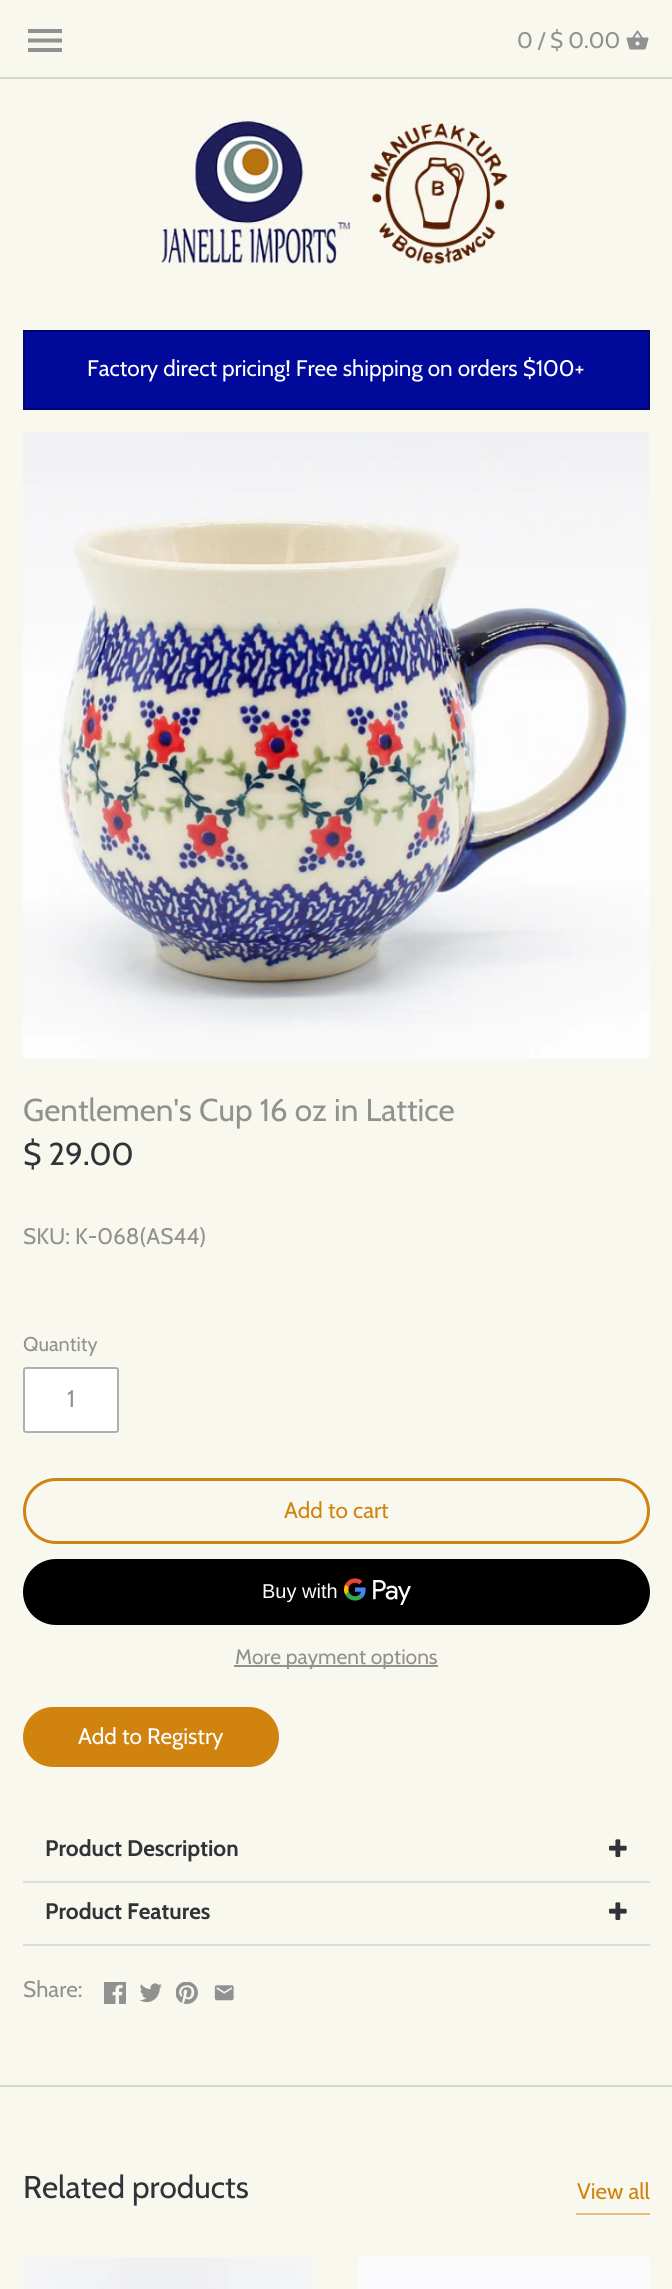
#include <cairo.h>
#include <math.h>
#include <stddef.h>


static void ink(cairo_t *ctx, unsigned color) {
    cairo_set_source_rgb(ctx, (color >> 16) / 255.0, (color >> 8 & 255) / 255.0, (color & 255) / 255.0);
}

static void round_path(cairo_t *ctx, double x, double y, double w, double h, double r) {
    cairo_new_sub_path(ctx);
    cairo_arc(ctx, x + w - r, y + h - r, r, 0, M_PI / 2);
    cairo_arc(ctx, x + r, y + h - r, r, M_PI / 2, M_PI);
    cairo_arc(ctx, x + r, y + r, r, M_PI, 1.5 * M_PI);
    cairo_arc(ctx, x + w - r, y + r, r, 1.5 * M_PI, 2 * M_PI);
    cairo_close_path(ctx);
}

static void paste(cairo_t *ctx, const char *path, double x, double y, double w, double h) {
    cairo_surface_t *image = cairo_image_surface_create_from_png(path);
    cairo_save(ctx);
    cairo_set_source_surface(ctx, image, x, y);
    cairo_rectangle(ctx, x, y, w, h);
    cairo_fill(ctx);
    cairo_restore(ctx);
    cairo_surface_destroy(image);
}

int main(void) {
    cairo_surface_t *surface = cairo_image_surface_create(CAIRO_FORMAT_RGB24, 672, 2289);
    cairo_t *ctx = cairo_create(surface);
    cairo_font_options_t *options = cairo_font_options_create();
    cairo_font_options_set_hint_metrics(options, CAIRO_HINT_METRICS_OFF);
    cairo_font_options_set_hint_style(options, CAIRO_HINT_STYLE_NONE);
    cairo_set_font_options(ctx, options);
    cairo_set_miter_limit(ctx, 4);
    ink(ctx, 0xF9F8EF);
    cairo_paint(ctx);
    ink(ctx, 0xD5D6D0);
    cairo_rectangle(ctx, 0, 77, 672, 2);
    cairo_fill(ctx);
    ink(ctx, 0x929191);
    cairo_new_path(ctx);
    cairo_move_to(ctx, 28, 52);
    cairo_line_to(ctx, 62, 52);
    cairo_line_to(ctx, 62, 48);
    cairo_line_to(ctx, 28, 48);
    cairo_close_path(ctx);
    cairo_move_to(ctx, 28, 42.5);
    cairo_line_to(ctx, 62, 42.5);
    cairo_line_to(ctx, 62, 38.5);
    cairo_line_to(ctx, 28, 38.5);
    cairo_close_path(ctx);
    cairo_move_to(ctx, 28, 29);
    cairo_line_to(ctx, 28, 33);
    cairo_line_to(ctx, 62, 33);
    cairo_line_to(ctx, 62, 29);
    cairo_close_path(ctx);
    cairo_fill(ctx);
    cairo_select_font_face(ctx, "Cabin", CAIRO_FONT_SLANT_NORMAL, CAIRO_FONT_WEIGHT_NORMAL);
    cairo_set_font_size(ctx, 22.5);
    cairo_move_to(ctx, 517, 48);
    cairo_show_text(ctx, "0 / $ 0.00");
    paste(ctx, "media/1.png", 626, 30, 23, 20);
    paste(ctx, "media/2.png", 160, 118, 348, 148);
    ink(ctx, 0x010A9A);
    cairo_rectangle(ctx, 24, 331, 625, 78);
    cairo_fill_preserve(ctx);
    ink(ctx, 0x010771);
    cairo_stroke(ctx);
    ink(ctx, 0xFFFFFF);
    cairo_move_to(ctx, 87, 376);
    cairo_show_text(ctx, "Factory direct pricing! Free shipping on orders $100+");
    paste(ctx, "media/3.png", 22, 432, 628, 627);
    cairo_set_font_size(ctx, 31.5);
    ink(ctx, 0x929191);
    cairo_move_to(ctx, 23, 1121);
    cairo_show_text(ctx, "Gentlemen's Cup 16 oz in Lattice");
    ink(ctx, 0x303438);
    cairo_move_to(ctx, 23, 1165);
    cairo_show_text(ctx, "$ 29.00");
    cairo_set_font_size(ctx, 22.5);
    ink(ctx, 0x929191);
    cairo_move_to(ctx, 23, 1244);
    cairo_show_text(ctx, "SKU: K-068(AS44)");
    cairo_set_font_size(ctx, 20);
    cairo_move_to(ctx, 23, 1351);
    cairo_show_text(ctx, "Quantity");
    ink(ctx, 0xFFFFFF);
    round_path(ctx, 24, 1368, 94, 64, 2);
    cairo_fill_preserve(ctx);
    ink(ctx, 0xB0AFAD);
    cairo_stroke(ctx);
    cairo_set_font_size(ctx, 24);
    ink(ctx, 0x929191);
    cairo_move_to(ctx, 67, 1407);
    cairo_show_text(ctx, "1");
    round_path(ctx, 24.5, 1479.5, 624, 63, 31.5);
    ink(ctx, 0xD18310);
    cairo_set_line_width(ctx, 3);
    cairo_stroke(ctx);
    cairo_set_font_size(ctx, 22.5);
    cairo_move_to(ctx, 284, 1518);
    cairo_show_text(ctx, "Add to cart");
    ink(ctx, 0x000000);
    round_path(ctx, 23, 1559, 627, 66, 33);
    cairo_fill(ctx);
    cairo_select_font_face(ctx, "Liberation Sans", CAIRO_FONT_SLANT_NORMAL, CAIRO_FONT_WEIGHT_NORMAL);
    cairo_set_font_size(ctx, 20);
    ink(ctx, 0xFFFFFF);
    cairo_move_to(ctx, 262, 1598);
    cairo_show_text(ctx, "Buy with");
    paste(ctx, "media/4.png", 344, 1578, 67, 27);
    ink(ctx, 0x929191);
    cairo_rectangle(ctx, 234, 1665, 204, 2);
    cairo_fill(ctx);
    cairo_select_font_face(ctx, "Cabin", CAIRO_FONT_SLANT_NORMAL, CAIRO_FONT_WEIGHT_NORMAL);
    cairo_set_font_size(ctx, 21);
    cairo_move_to(ctx, 235, 1664);
    cairo_show_text(ctx, "More payment options");
    ink(ctx, 0xD18310);
    round_path(ctx, 24.5, 1708.5, 253, 57, 28.5);
    cairo_fill_preserve(ctx);
    cairo_stroke(ctx);
    cairo_set_font_size(ctx, 22.5);
    ink(ctx, 0xFFFFFF);
    cairo_move_to(ctx, 78, 1744);
    cairo_show_text(ctx, "Add to Registry");
    ink(ctx, 0xDDDDDD);
    cairo_rectangle(ctx, 23, 1881, 627, 2);
    cairo_fill(ctx);
    cairo_select_font_face(ctx, "Cabin", CAIRO_FONT_SLANT_NORMAL, CAIRO_FONT_WEIGHT_BOLD);
    ink(ctx, 0x303438);
    cairo_move_to(ctx, 45, 1856);
    cairo_show_text(ctx, "Product Description");
    paste(ctx, "media/5.png", 609, 1839, 18, 18);
    ink(ctx, 0xDDDDDD);
    cairo_rectangle(ctx, 23, 1944, 627, 2);
    cairo_fill(ctx);
    ink(ctx, 0x303438);
    cairo_move_to(ctx, 45, 1919);
    cairo_show_text(ctx, "Product Features");
    paste(ctx, "media/5.png", 609, 1902, 18, 18);
    cairo_select_font_face(ctx, "Cabin", CAIRO_FONT_SLANT_NORMAL, CAIRO_FONT_WEIGHT_NORMAL);
    ink(ctx, 0x929191);
    cairo_move_to(ctx, 23, 1997);
    cairo_show_text(ctx, "Share:");
    paste(ctx, "media/6.png", 104, 1982, 22, 22);
    paste(ctx, "media/7.png", 140, 1983, 22, 20);
    paste(ctx, "media/8.png", 176, 1982, 22, 22);
    paste(ctx, "media/9.png", 214, 1985, 20, 16);
    ink(ctx, 0xD5D6D0);
    cairo_rectangle(ctx, 0, 2085, 672, 2);
    cairo_fill(ctx);
    cairo_set_font_size(ctx, 31.5);
    ink(ctx, 0x303438);
    cairo_move_to(ctx, 23, 2198);
    cairo_show_text(ctx, "Related products");
    cairo_set_font_size(ctx, 22.5);
    ink(ctx, 0xD18310);
    cairo_move_to(ctx, 577, 2199);
    cairo_show_text(ctx, "View all");
    ink(ctx, 0xE5BE80);
    cairo_rectangle(ctx, 576, 2213, 74, 2);
    cairo_fill(ctx);
    paste(ctx, "media/10.png", 22, 2257, 292, 32);
    ink(ctx, 0xFAFAFC);
    cairo_rectangle(ctx, 358, 2257, 292, 32);
    cairo_fill(ctx);
    cairo_surface_write_to_png(surface, "image.png");
    cairo_font_options_destroy(options);
    cairo_destroy(ctx);
    cairo_surface_destroy(surface);
    return 0;
}
